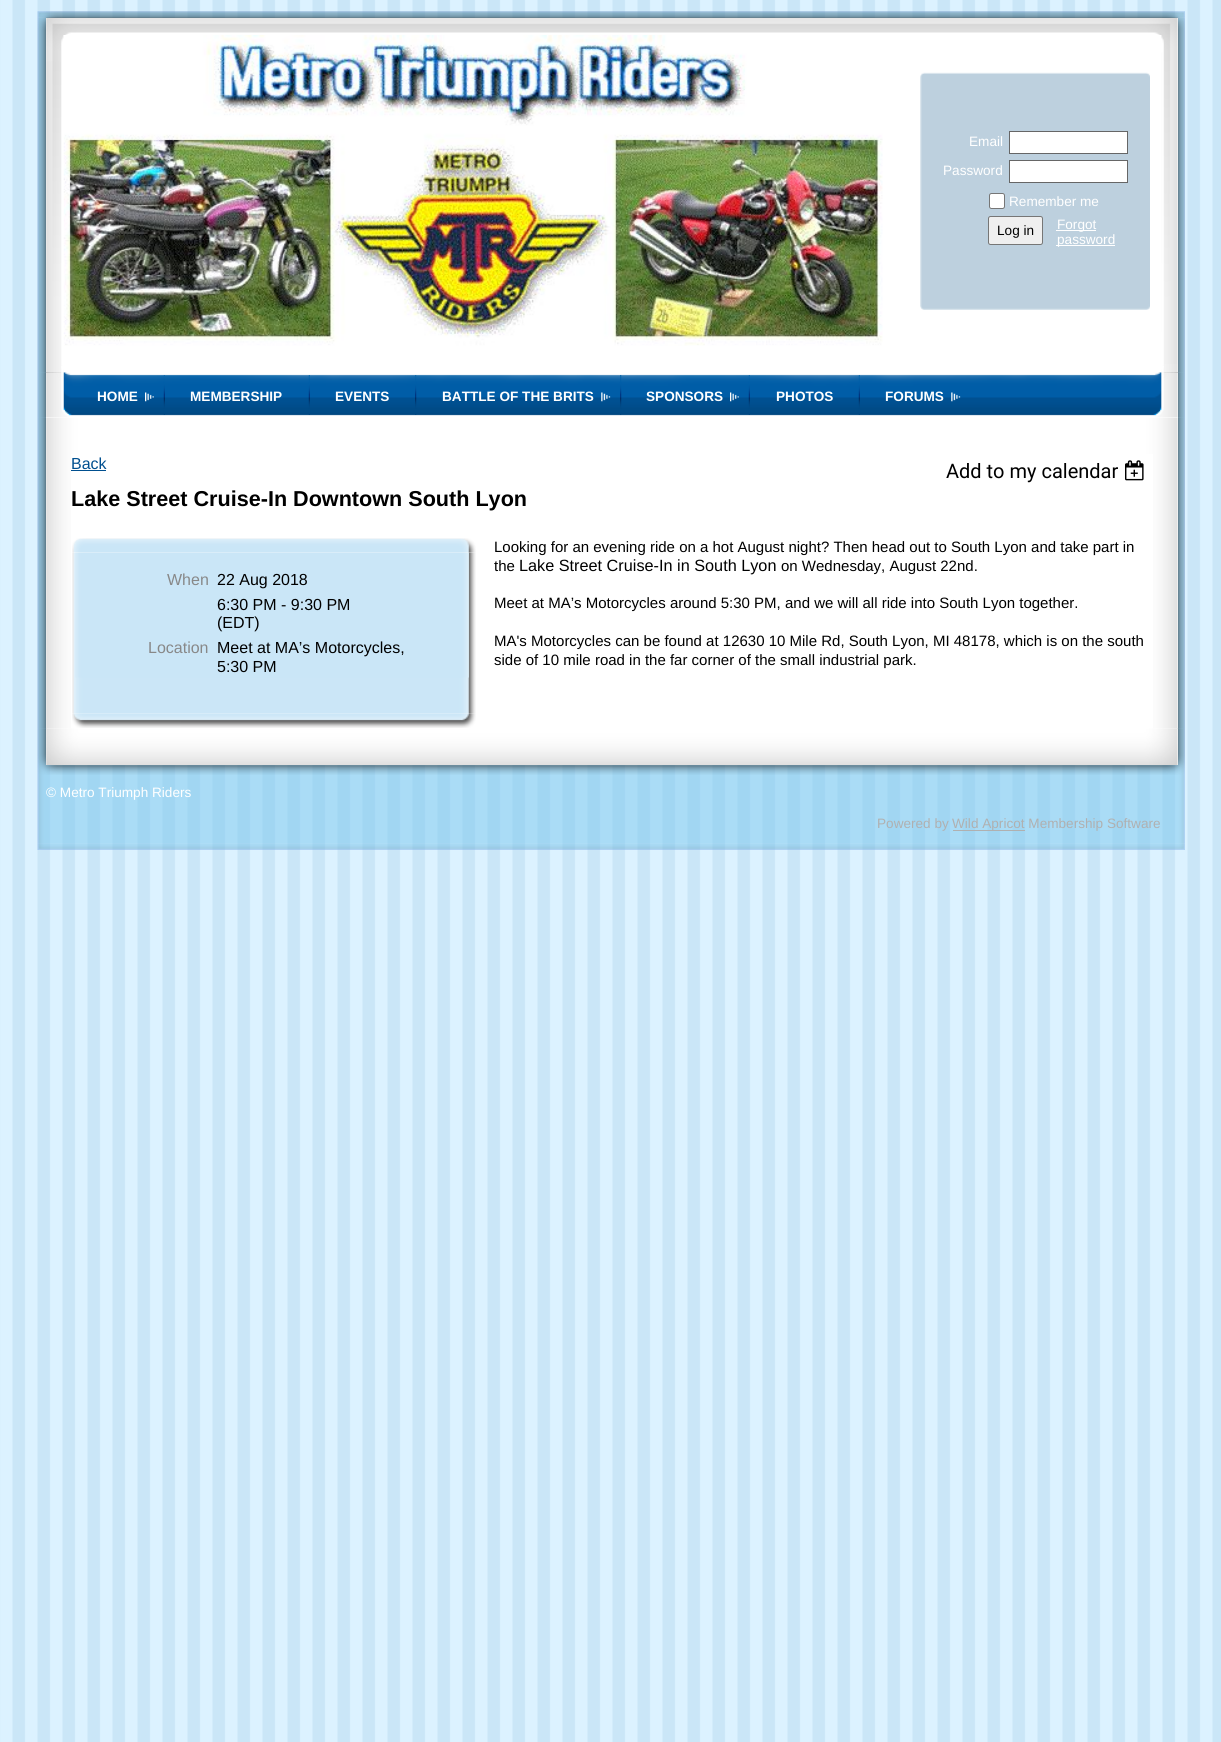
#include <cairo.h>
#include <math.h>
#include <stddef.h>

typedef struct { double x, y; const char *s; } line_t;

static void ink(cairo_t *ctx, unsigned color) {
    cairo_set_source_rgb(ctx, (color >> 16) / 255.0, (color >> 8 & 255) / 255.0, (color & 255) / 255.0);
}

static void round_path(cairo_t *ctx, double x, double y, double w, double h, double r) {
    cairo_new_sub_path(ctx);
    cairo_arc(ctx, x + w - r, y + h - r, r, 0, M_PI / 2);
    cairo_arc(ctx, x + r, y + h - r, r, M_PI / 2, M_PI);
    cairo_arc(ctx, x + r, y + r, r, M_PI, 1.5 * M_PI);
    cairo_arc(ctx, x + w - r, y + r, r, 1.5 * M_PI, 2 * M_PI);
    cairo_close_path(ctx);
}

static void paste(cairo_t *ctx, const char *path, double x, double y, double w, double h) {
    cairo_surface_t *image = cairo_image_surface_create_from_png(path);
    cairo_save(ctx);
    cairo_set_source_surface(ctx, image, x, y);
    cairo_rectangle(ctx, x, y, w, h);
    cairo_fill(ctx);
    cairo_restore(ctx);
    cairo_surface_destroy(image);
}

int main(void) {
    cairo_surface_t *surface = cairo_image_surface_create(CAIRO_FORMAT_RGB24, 1221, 1742);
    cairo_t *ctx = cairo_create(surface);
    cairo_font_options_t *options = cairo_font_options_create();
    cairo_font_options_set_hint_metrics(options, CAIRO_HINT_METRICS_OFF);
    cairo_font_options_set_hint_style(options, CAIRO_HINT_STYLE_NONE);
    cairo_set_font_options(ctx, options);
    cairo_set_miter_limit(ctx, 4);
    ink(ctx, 0xFFFFFF);
    cairo_paint(ctx);
    paste(ctx, "media/1.png", 0, 0, 1221, 1742);
    paste(ctx, "media/2.png", 37, 11, 1148, 7);
    paste(ctx, "media/3.png", 37, 17, 1148, 827);
    paste(ctx, "media/4.png", 37, 11, 1148, 24);
    ink(ctx, 0xFFFFFF);
    cairo_rectangle(ctx, 46, 18, 1132, 17);
    cairo_fill(ctx);
    paste(ctx, "media/5.png", 46, 17, 1132, 18);
    paste(ctx, "media/6.png", 37, 35, 1148, 338);
    cairo_rectangle(ctx, 46, 35, 1132, 338);
    cairo_fill(ctx);
    paste(ctx, "media/7.png", 46, 35, 1132, 329);
    paste(ctx, "media/8.png", 63, 35, 1099, 2);
    paste(ctx, "media/9.png", 63, 35, 820, 311);
    paste(ctx, "media/10.png", 920, 72, 230, 238);
    cairo_select_font_face(ctx, "Liberation Sans", CAIRO_FONT_SLANT_NORMAL, CAIRO_FONT_WEIGHT_NORMAL);
    cairo_set_font_size(ctx, 13.6);
    cairo_move_to(ctx, 969, 146);
    cairo_show_text(ctx, "Email");
    cairo_rectangle(ctx, 1009.5, 131.5, 118, 22);
    cairo_fill_preserve(ctx);
    ink(ctx, 0x666666);
    cairo_set_line_width(ctx, 1);
    cairo_stroke(ctx);
    ink(ctx, 0xFFFFFF);
    cairo_move_to(ctx, 943, 175);
    cairo_show_text(ctx, "Password");
    cairo_rectangle(ctx, 1009.5, 160.5, 118, 22);
    cairo_fill_preserve(ctx);
    ink(ctx, 0x666666);
    cairo_stroke(ctx);
    ink(ctx, 0xFFFFFF);
    round_path(ctx, 989.5, 193.5, 15, 15, 2);
    cairo_fill_preserve(ctx);
    ink(ctx, 0x767676);
    cairo_stroke(ctx);
    ink(ctx, 0xFFFFFF);
    cairo_move_to(ctx, 1009, 206);
    cairo_show_text(ctx, "Remember me");
    ink(ctx, 0xEFEFEF);
    round_path(ctx, 988.5, 216.5, 54, 28, 2);
    cairo_fill_preserve(ctx);
    ink(ctx, 0x767676);
    cairo_stroke(ctx);
    ink(ctx, 0x000000);
    cairo_move_to(ctx, 997, 235);
    cairo_show_text(ctx, "Log in");
    ink(ctx, 0xFFFFFF);
    cairo_rectangle(ctx, 1056, 230, 40, 1);
    cairo_fill(ctx);
    cairo_move_to(ctx, 1057, 229);
    cairo_show_text(ctx, "Forgot");
    cairo_rectangle(ctx, 1056, 245, 59, 1);
    cairo_fill(ctx);
    cairo_move_to(ctx, 1057, 244);
    cairo_show_text(ctx, "password");
    paste(ctx, "media/11.png", 46, 364, 18, 9);
    paste(ctx, "media/12.png", 1161, 364, 17, 9);
    paste(ctx, "media/13.png", 46, 372, 1132, 1);
    paste(ctx, "media/14.png", 61, 366, 1103, 7);
    paste(ctx, "media/27.png", 37, 417, 1148, 312);
    paste(ctx, "media/15.png", 37, 372, 1148, 46);
    paste(ctx, "media/16.png", 46, 372, 1132, 1);
    cairo_rectangle(ctx, 46, 373, 1132, 45);
    cairo_fill(ctx);
    paste(ctx, "media/17.png", 46, 372, 1132, 46);
    paste(ctx, "media/18.png", 145, 392, 9, 10);
    cairo_select_font_face(ctx, "Liberation Sans", CAIRO_FONT_SLANT_NORMAL, CAIRO_FONT_WEIGHT_BOLD);
    cairo_move_to(ctx, 97, 401);
    cairo_show_text(ctx, "HOME");
    paste(ctx, "media/19.png", 163, 375, 2, 40);
    cairo_move_to(ctx, 190, 401);
    cairo_show_text(ctx, "MEMBERSHIP");
    paste(ctx, "media/20.png", 308, 375, 2, 40);
    cairo_move_to(ctx, 335, 401);
    cairo_show_text(ctx, "EVENTS");
    paste(ctx, "media/21.png", 415, 375, 2, 40);
    paste(ctx, "media/22.png", 601, 392, 10, 10);
    cairo_move_to(ctx, 442, 401);
    cairo_show_text(ctx, "BATTLE OF THE BRITS");
    paste(ctx, "media/23.png", 620, 375, 2, 40);
    paste(ctx, "media/24.png", 730, 392, 9, 10);
    cairo_move_to(ctx, 646, 401);
    cairo_show_text(ctx, "SPONSORS");
    paste(ctx, "media/25.png", 748, 375, 2, 40);
    cairo_move_to(ctx, 776, 401);
    cairo_show_text(ctx, "PHOTOS");
    paste(ctx, "media/26.png", 858, 375, 2, 40);
    paste(ctx, "media/22.png", 951, 392, 10, 10);
    cairo_move_to(ctx, 885, 401);
    cairo_show_text(ctx, "FORUMS");
    cairo_rectangle(ctx, 46, 418, 1132, 311);
    cairo_fill(ctx);
    paste(ctx, "media/28.png", 46, 418, 1132, 311);
    cairo_rectangle(ctx, 71, 454, 1082, 274);
    cairo_fill(ctx);
    cairo_select_font_face(ctx, "Liberation Sans", CAIRO_FONT_SLANT_NORMAL, CAIRO_FONT_WEIGHT_NORMAL);
    cairo_set_font_size(ctx, 16);
    ink(ctx, 0x004F8F);
    cairo_move_to(ctx, 71, 469);
    cairo_show_text(ctx, "Back");
    cairo_rectangle(ctx, 71, 470, 35, 1);
    cairo_fill(ctx);
    cairo_select_font_face(ctx, "Roboto", CAIRO_FONT_SLANT_NORMAL, CAIRO_FONT_WEIGHT_NORMAL);
    cairo_set_font_size(ctx, 20);
    ink(ctx, 0x000000);
    cairo_move_to(ctx, 946, 478);
    cairo_show_text(ctx, "Add to my calendar");
    paste(ctx, "media/29.png", 1125, 460, 19, 21);
    cairo_select_font_face(ctx, "Liberation Sans", CAIRO_FONT_SLANT_NORMAL, CAIRO_FONT_WEIGHT_BOLD);
    cairo_set_font_size(ctx, 21.6);
    cairo_move_to(ctx, 71, 506);
    cairo_show_text(ctx, "Lake Street Cruise-In Downtown South Lyon");
    paste(ctx, "media/30.png", 72, 538, 404, 15);
    paste(ctx, "media/31.png", 72, 552, 404, 162);
    paste(ctx, "media/32.png", 75, 552, 394, 126);
    cairo_select_font_face(ctx, "Liberation Sans", CAIRO_FONT_SLANT_NORMAL, CAIRO_FONT_WEIGHT_NORMAL);
    cairo_set_font_size(ctx, 16);
    ink(ctx, 0x888888);
    cairo_move_to(ctx, 167, 585);
    cairo_show_text(ctx, "When");
    ink(ctx, 0x000000);
    {
        static const line_t items[] = {
            {217, 585, "22 Aug 2018"},
            {217, 610, "6:30 PM - 9:30 PM"},
            {217, 628, "(EDT)"},
        };
        for (size_t i = 0; i < sizeof items / sizeof *items; i++) {
            cairo_move_to(ctx, items[i].x, items[i].y);
            cairo_show_text(ctx, items[i].s);
        }
    }
    ink(ctx, 0x888888);
    cairo_move_to(ctx, 148, 653);
    cairo_show_text(ctx, "Location");
    ink(ctx, 0x000000);
    cairo_move_to(ctx, 217, 653);
    cairo_show_text(ctx, "Meet at MA’s Motorcycles,");
    cairo_move_to(ctx, 217, 672);
    cairo_show_text(ctx, "5:30 PM");
    paste(ctx, "media/33.png", 72, 713, 404, 15);
    cairo_set_font_size(ctx, 15);
    cairo_move_to(ctx, 494, 552);
    cairo_show_text(ctx, "Looking for an evening ride on a hot August night? Then head out to South Lyon and take part in");
    cairo_move_to(ctx, 494, 571);
    cairo_show_text(ctx, "the");
    cairo_set_font_size(ctx, 16.25);
    cairo_move_to(ctx, 519, 571);
    cairo_show_text(ctx, "Lake Street Cruise-In in South Lyon");
    cairo_set_font_size(ctx, 15);
    {
        static const line_t items[] = {
            {781, 571, "on Wednesday, August 22nd."},
            {494, 608, "Meet at MA’s Motorcycles around 5:30 PM, and we will all ride into South Lyon together."},
            {494, 646, "MA's Motorcycles can be found at 12630 10 Mile Rd, South Lyon, MI 48178, which is on the south"},
            {494, 665, "side of 10 mile road in the far corner of the small industrial park."},
        };
        for (size_t i = 0; i < sizeof items / sizeof *items; i++) {
            cairo_move_to(ctx, items[i].x, items[i].y);
            cairo_show_text(ctx, items[i].s);
        }
    }
    paste(ctx, "media/34.png", 37, 728, 1148, 47);
    ink(ctx, 0xFFFFFF);
    cairo_rectangle(ctx, 46, 729, 1132, 36);
    cairo_fill(ctx);
    paste(ctx, "media/35.png", 46, 729, 1132, 36);
    cairo_set_font_size(ctx, 13.6);
    cairo_move_to(ctx, 46, 797);
    cairo_show_text(ctx, "© Metro Triumph Riders");
    ink(ctx, 0xB0B0B0);
    cairo_move_to(ctx, 877, 828);
    cairo_show_text(ctx, "Powered by");
    cairo_rectangle(ctx, 953, 830, 72, 1);
    cairo_fill(ctx);
    cairo_move_to(ctx, 952, 828);
    cairo_show_text(ctx, "Wild Apricot Membership Software");
    paste(ctx, "media/36.png", 37, 843, 1148, 7);
    cairo_surface_write_to_png(surface, "image.png");
    cairo_font_options_destroy(options);
    cairo_destroy(ctx);
    cairo_surface_destroy(surface);
    return 0;
}
